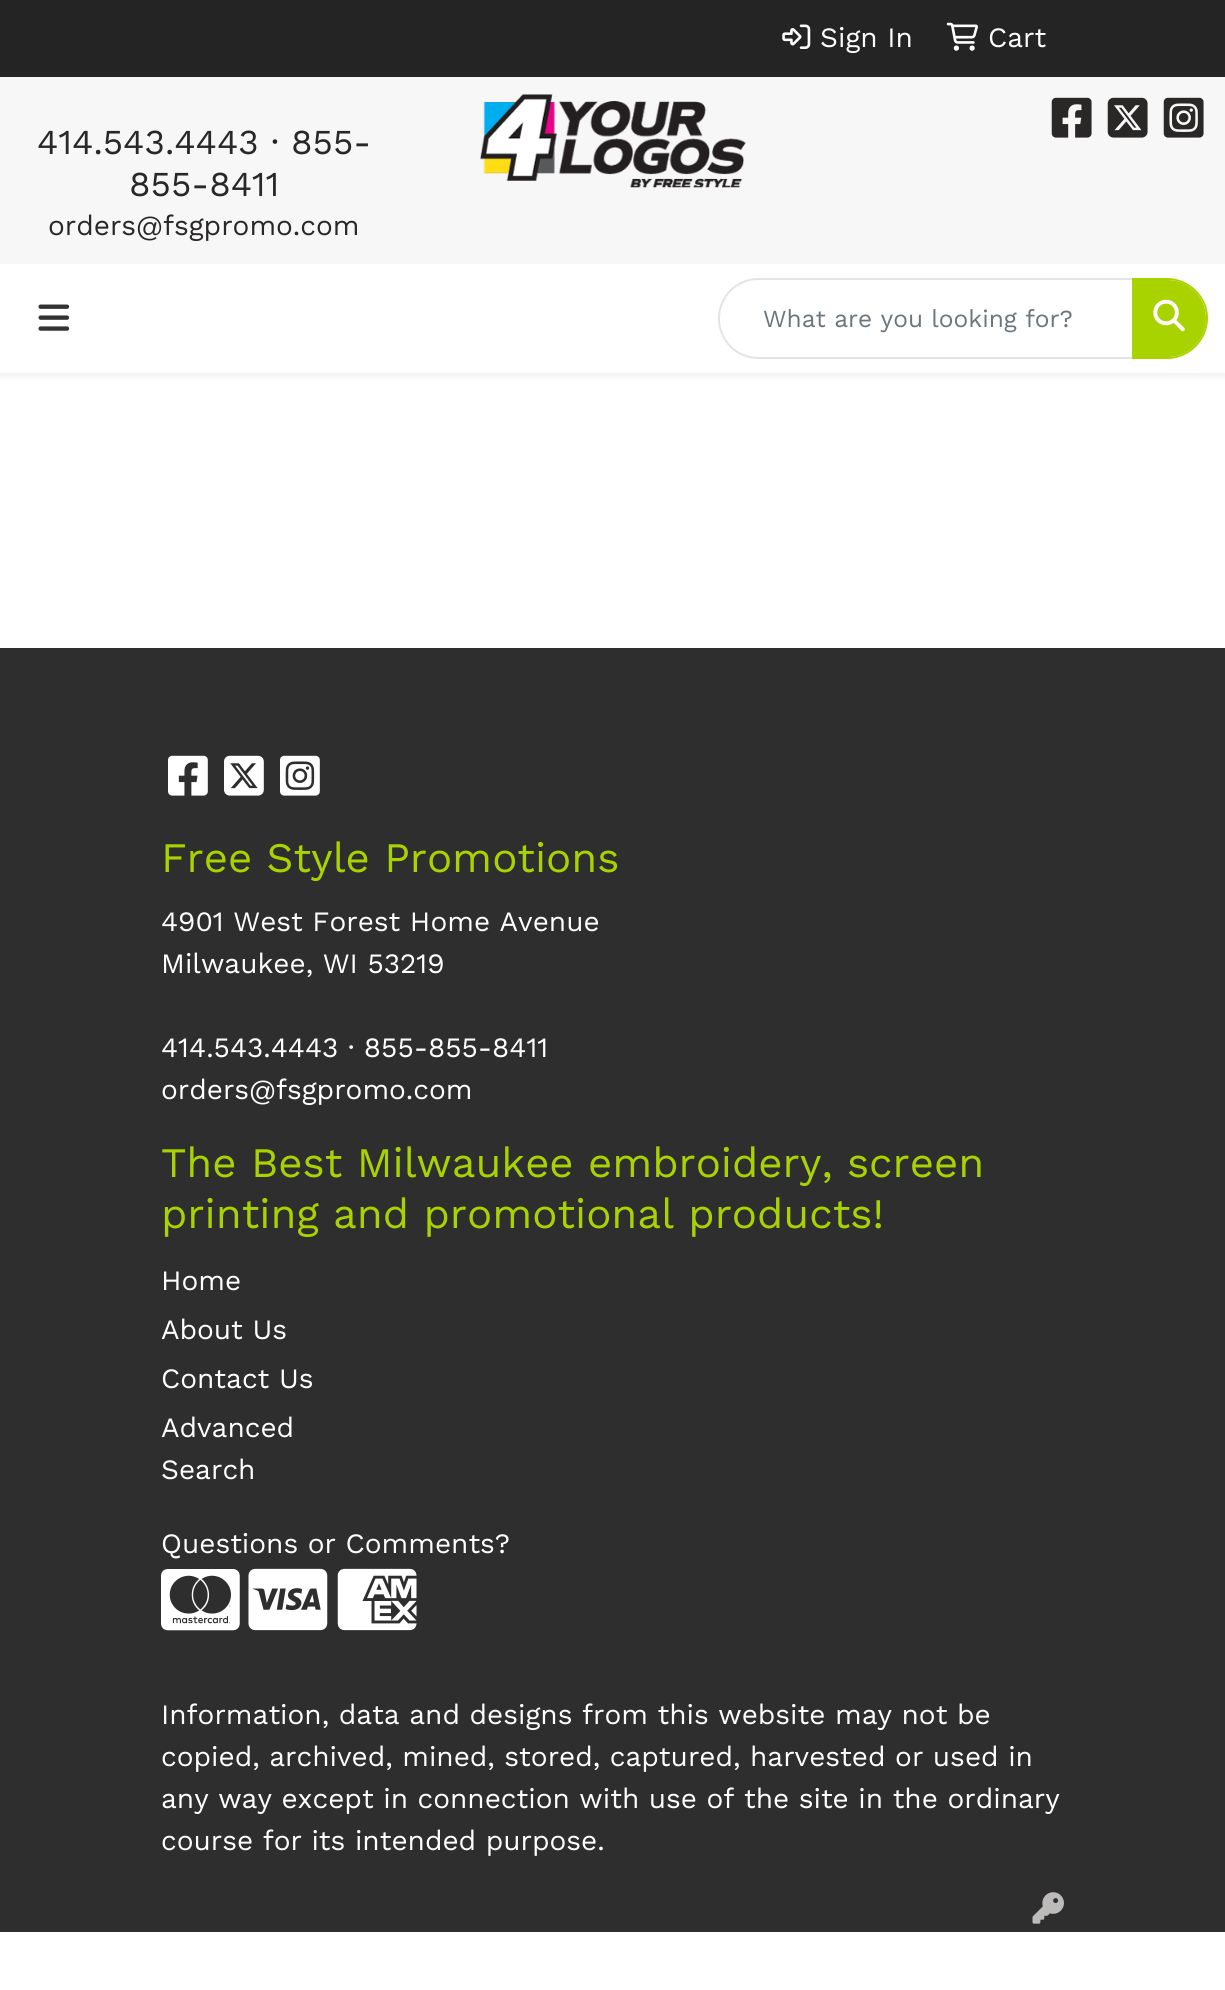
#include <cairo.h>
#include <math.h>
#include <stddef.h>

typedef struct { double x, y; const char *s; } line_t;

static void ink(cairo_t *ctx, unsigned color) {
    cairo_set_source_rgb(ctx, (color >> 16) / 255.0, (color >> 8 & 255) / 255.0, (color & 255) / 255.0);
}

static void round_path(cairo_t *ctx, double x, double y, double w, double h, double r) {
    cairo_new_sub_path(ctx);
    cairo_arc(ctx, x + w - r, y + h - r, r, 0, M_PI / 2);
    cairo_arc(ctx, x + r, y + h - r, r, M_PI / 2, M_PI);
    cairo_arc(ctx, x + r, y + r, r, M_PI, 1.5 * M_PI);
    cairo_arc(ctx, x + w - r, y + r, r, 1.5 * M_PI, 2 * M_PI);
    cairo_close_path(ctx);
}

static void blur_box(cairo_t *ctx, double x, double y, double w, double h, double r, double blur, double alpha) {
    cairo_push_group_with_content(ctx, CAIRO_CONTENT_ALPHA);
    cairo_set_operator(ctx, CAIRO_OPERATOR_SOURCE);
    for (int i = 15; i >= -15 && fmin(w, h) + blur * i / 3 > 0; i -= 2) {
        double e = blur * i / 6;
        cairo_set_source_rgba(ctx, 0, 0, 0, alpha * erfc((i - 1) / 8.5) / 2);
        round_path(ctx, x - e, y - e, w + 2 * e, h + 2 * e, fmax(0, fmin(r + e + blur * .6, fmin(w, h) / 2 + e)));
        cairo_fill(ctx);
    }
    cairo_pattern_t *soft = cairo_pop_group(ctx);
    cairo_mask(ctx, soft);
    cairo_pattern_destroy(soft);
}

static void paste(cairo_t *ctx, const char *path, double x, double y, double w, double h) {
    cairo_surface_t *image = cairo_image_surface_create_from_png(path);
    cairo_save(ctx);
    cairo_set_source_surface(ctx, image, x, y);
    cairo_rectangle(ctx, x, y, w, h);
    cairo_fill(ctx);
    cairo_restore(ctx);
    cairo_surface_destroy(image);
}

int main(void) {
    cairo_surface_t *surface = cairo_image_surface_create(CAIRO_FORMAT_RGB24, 1225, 1990);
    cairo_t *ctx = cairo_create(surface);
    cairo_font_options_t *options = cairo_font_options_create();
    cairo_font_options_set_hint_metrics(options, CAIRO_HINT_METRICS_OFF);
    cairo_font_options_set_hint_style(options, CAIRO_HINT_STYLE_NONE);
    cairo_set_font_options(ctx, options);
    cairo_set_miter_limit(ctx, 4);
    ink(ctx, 0xFFFFFF);
    cairo_paint(ctx);
    ink(ctx, 0xF7F7F7);
    cairo_rectangle(ctx, 0, 77, 1225, 187);
    cairo_fill(ctx);
    ink(ctx, 0x242424);
    cairo_rectangle(ctx, 0, 0, 1225, 77);
    cairo_fill(ctx);
    paste(ctx, "media/1.png", 782, 24, 29, 25);
    cairo_select_font_face(ctx, "Work Sans", CAIRO_FONT_SLANT_NORMAL, CAIRO_FONT_WEIGHT_NORMAL);
    cairo_set_font_size(ctx, 28);
    ink(ctx, 0xFFFFFF);
    cairo_move_to(ctx, 820, 47);
    cairo_show_text(ctx, "Sign In");
    paste(ctx, "media/2.png", 946, 22, 32, 29);
    cairo_move_to(ctx, 988, 47);
    cairo_show_text(ctx, "Cart");
    paste(ctx, "media/3.png", 480, 94, 266, 94);
    paste(ctx, "media/4.png", 1051, 97, 41, 41);
    paste(ctx, "media/5.png", 1107, 97, 41, 41);
    paste(ctx, "media/6.png", 1163, 97, 41, 41);
    cairo_set_font_size(ctx, 35);
    ink(ctx, 0x2A2727);
    cairo_move_to(ctx, 37, 154);
    cairo_show_text(ctx, "414.543.4443");
    ink(ctx, 0x212529);
    cairo_move_to(ctx, 271, 154);
    cairo_show_text(ctx, "·");
    ink(ctx, 0x2A2727);
    cairo_move_to(ctx, 291, 154);
    cairo_show_text(ctx, "855-");
    cairo_move_to(ctx, 129, 196);
    cairo_show_text(ctx, "855-8411");
    cairo_set_font_size(ctx, 28);
    cairo_move_to(ctx, 48, 235);
    cairo_show_text(ctx, "orders@fsgpromo.com");
    ink(ctx, 0x000000);
    blur_box(ctx, 0, 268, 1225, 108, 0, 3.5, 0.07);
    ink(ctx, 0xFFFFFF);
    cairo_rectangle(ctx, 0, 264, 1225, 109);
    cairo_fill(ctx);
    paste(ctx, "media/7.png", 38, 304, 32, 27);
    cairo_new_path(ctx);
    cairo_move_to(ctx, 758.5, 279);
    cairo_line_to(ctx, 1133, 279);
    cairo_line_to(ctx, 1133, 358);
    cairo_line_to(ctx, 758.5, 358);
    cairo_curve_to(ctx, 736.5, 358, 719, 340.5, 719, 318.5);
    cairo_curve_to(ctx, 719, 296.5, 736.5, 279, 758.5, 279);
    cairo_close_path(ctx);
    ink(ctx, 0xE4E4E4);
    cairo_stroke(ctx);
    cairo_set_font_size(ctx, 24.5);
    ink(ctx, 0x6C757D);
    cairo_move_to(ctx, 763, 327);
    cairo_show_text(ctx, "What are you looking for?");
    ink(ctx, 0xA9D300);
    cairo_new_path(ctx);
    cairo_move_to(ctx, 1132, 280);
    cairo_line_to(ctx, 1167.5, 280);
    cairo_curve_to(ctx, 1189, 280, 1206, 297, 1206, 318.5);
    cairo_curve_to(ctx, 1206, 340, 1189, 357, 1167.5, 357);
    cairo_line_to(ctx, 1132, 357);
    cairo_close_path(ctx);
    cairo_fill(ctx);
    cairo_set_fill_rule(ctx, CAIRO_FILL_RULE_EVEN_ODD);
    cairo_new_path(ctx);
    cairo_move_to(ctx, 1132, 278);
    cairo_line_to(ctx, 1167, 278);
    cairo_curve_to(ctx, 1189, 278, 1208, 296, 1208, 318);
    cairo_curve_to(ctx, 1208, 341, 1189, 359, 1167, 359);
    cairo_line_to(ctx, 1132, 359);
    cairo_close_path(ctx);
    cairo_move_to(ctx, 1132, 280);
    cairo_line_to(ctx, 1167, 280);
    cairo_curve_to(ctx, 1189, 280, 1206, 297, 1206, 318);
    cairo_curve_to(ctx, 1206, 340, 1189, 357, 1167, 357);
    cairo_line_to(ctx, 1132, 357);
    cairo_close_path(ctx);
    cairo_fill(ctx);
    paste(ctx, "media/8.png", 1153, 299, 32, 33);
    ink(ctx, 0x2E2E2E);
    cairo_rectangle(ctx, 0, 648, 1225, 1284);
    cairo_fill(ctx);
    paste(ctx, "media/9.png", 168, 755, 40, 41);
    paste(ctx, "media/10.png", 224, 755, 40, 41);
    paste(ctx, "media/11.png", 280, 755, 40, 41);
    cairo_set_font_size(ctx, 42);
    ink(ctx, 0xA9D300);
    cairo_move_to(ctx, 161, 872);
    cairo_show_text(ctx, "Free Style Promotions");
    cairo_set_font_size(ctx, 28);
    ink(ctx, 0xFFFFFF);
    {
        static const line_t items[] = {
            {161, 931, "4901 West Forest Home Avenue"},
            {161, 973, "Milwaukee, WI 53219"},
            {161, 1057, "414.543.4443 · 855-855-8411"},
            {161, 1099, "orders@fsgpromo.com"},
        };
        for (size_t i = 0; i < sizeof items / sizeof *items; i++) {
            cairo_move_to(ctx, items[i].x, items[i].y);
            cairo_show_text(ctx, items[i].s);
        }
    }
    cairo_set_font_size(ctx, 42);
    ink(ctx, 0xA9D300);
    cairo_move_to(ctx, 161, 1177);
    cairo_show_text(ctx, "The Best Milwaukee embroidery, screen");
    cairo_move_to(ctx, 161, 1228);
    cairo_show_text(ctx, "printing and promotional products!");
    cairo_set_font_size(ctx, 28);
    ink(ctx, 0xFFFFFF);
    {
        static const line_t items[] = {
            {161, 1290, "Home"},
            {161, 1339, "About Us"},
            {161, 1388, "Contact Us"},
            {161, 1437, "Advanced"},
            {161, 1479, "Search"},
            {161, 1553, "Questions or Comments?"},
        };
        for (size_t i = 0; i < sizeof items / sizeof *items; i++) {
            cairo_move_to(ctx, items[i].x, items[i].y);
            cairo_show_text(ctx, items[i].s);
        }
    }
    paste(ctx, "media/12.png", 161, 1569, 79, 62);
    paste(ctx, "media/13.png", 248, 1568, 80, 63);
    paste(ctx, "media/14.png", 337, 1568, 80, 63);
    {
        static const line_t items[] = {
            {161, 1724, "Information, data and designs from this website may not be"},
            {161, 1766, "copied, archived, mined, stored, captured, harvested or used in"},
            {161, 1808, "any way except in connection with use of the site in the ordinary"},
            {161, 1850, "course for its intended purpose."},
        };
        for (size_t i = 0; i < sizeof items / sizeof *items; i++) {
            cairo_move_to(ctx, items[i].x, items[i].y);
            cairo_show_text(ctx, items[i].s);
        }
    }
    paste(ctx, "media/15.png", 1032, 1892, 32, 32);
    cairo_surface_write_to_png(surface, "image.png");
    cairo_font_options_destroy(options);
    cairo_destroy(ctx);
    cairo_surface_destroy(surface);
    return 0;
}
